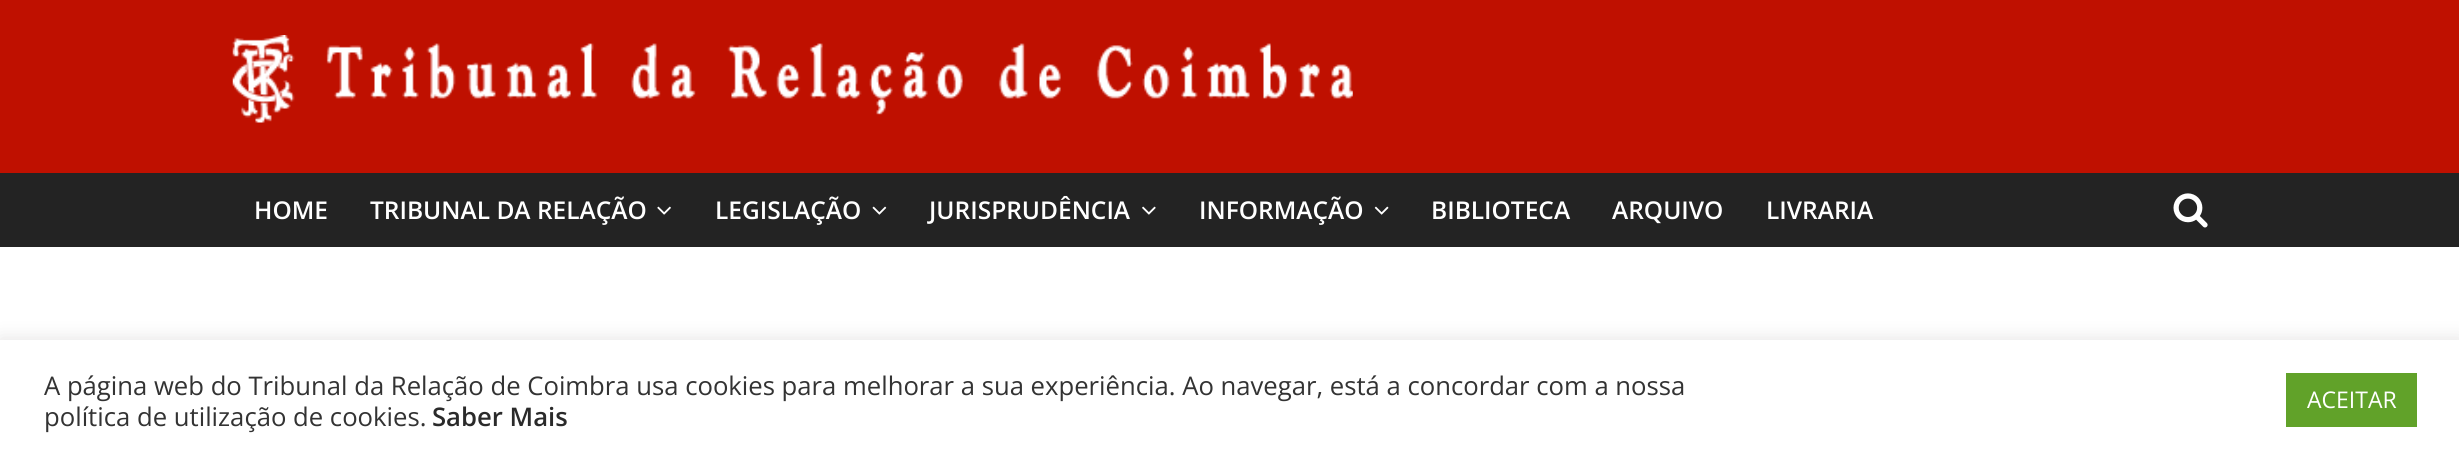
#include <cairo.h>
#include <math.h>
#include <stddef.h>

typedef struct { double x, y; const char *s; } line_t;

static void ink(cairo_t *ctx, unsigned color) {
    cairo_set_source_rgb(ctx, (color >> 16) / 255.0, (color >> 8 & 255) / 255.0, (color & 255) / 255.0);
}

static void round_path(cairo_t *ctx, double x, double y, double w, double h, double r) {
    cairo_new_sub_path(ctx);
    cairo_arc(ctx, x + w - r, y + h - r, r, 0, M_PI / 2);
    cairo_arc(ctx, x + r, y + h - r, r, M_PI / 2, M_PI);
    cairo_arc(ctx, x + r, y + r, r, M_PI, 1.5 * M_PI);
    cairo_arc(ctx, x + w - r, y + r, r, 1.5 * M_PI, 2 * M_PI);
    cairo_close_path(ctx);
}

static void blur_box(cairo_t *ctx, double x, double y, double w, double h, double r, double blur, double alpha) {
    cairo_push_group_with_content(ctx, CAIRO_CONTENT_ALPHA);
    cairo_set_operator(ctx, CAIRO_OPERATOR_SOURCE);
    for (int i = 15; i >= -15 && fmin(w, h) + blur * i / 3 > 0; i -= 2) {
        double e = blur * i / 6;
        cairo_set_source_rgba(ctx, 0, 0, 0, alpha * erfc((i - 1) / 8.5) / 2);
        round_path(ctx, x - e, y - e, w + 2 * e, h + 2 * e, fmax(0, fmin(r + e + blur * .6, fmin(w, h) / 2 + e)));
        cairo_fill(ctx);
    }
    cairo_pattern_t *soft = cairo_pop_group(ctx);
    cairo_mask(ctx, soft);
    cairo_pattern_destroy(soft);
}

static void paste(cairo_t *ctx, const char *path, double x, double y, double w, double h) {
    cairo_surface_t *image = cairo_image_surface_create_from_png(path);
    cairo_save(ctx);
    cairo_set_source_surface(ctx, image, x, y);
    cairo_rectangle(ctx, x, y, w, h);
    cairo_fill(ctx);
    cairo_restore(ctx);
    cairo_surface_destroy(image);
}

int main(void) {
    cairo_surface_t *surface = cairo_image_surface_create(CAIRO_FORMAT_RGB24, 2459, 459);
    cairo_t *ctx = cairo_create(surface);
    cairo_font_options_t *options = cairo_font_options_create();
    cairo_font_options_set_hint_metrics(options, CAIRO_HINT_METRICS_OFF);
    cairo_font_options_set_hint_style(options, CAIRO_HINT_STYLE_NONE);
    cairo_set_font_options(ctx, options);
    cairo_set_miter_limit(ctx, 4);
    ink(ctx, 0xBF1000);
    cairo_paint(ctx);
    paste(ctx, "media/1.png", 232, 35, 1121, 88);
    ink(ctx, 0x232323);
    cairo_rectangle(ctx, 0, 173, 2459, 74);
    cairo_fill(ctx);
    cairo_select_font_face(ctx, "Open Sans SemiBold", CAIRO_FONT_SLANT_NORMAL, CAIRO_FONT_WEIGHT_NORMAL);
    cairo_set_font_size(ctx, 24.5);
    ink(ctx, 0xFFFFFF);
    cairo_move_to(ctx, 254, 219);
    cairo_show_text(ctx, "HOME");
    cairo_move_to(ctx, 370, 219);
    cairo_show_text(ctx, "TRIBUNAL DA RELAÇÃO");
    paste(ctx, "media/2.png", 657, 206, 14, 9);
    cairo_move_to(ctx, 715, 219);
    cairo_show_text(ctx, "LEGISLAÇÃO");
    paste(ctx, "media/3.png", 872, 206, 15, 9);
    cairo_move_to(ctx, 929, 219);
    cairo_show_text(ctx, "JURISPRUDÊNCIA");
    paste(ctx, "media/4.png", 1142, 206, 14, 9);
    cairo_move_to(ctx, 1199, 219);
    cairo_show_text(ctx, "INFORMAÇÃO");
    paste(ctx, "media/5.png", 1374, 206, 15, 9);
    {
        static const line_t items[] = {
            {1431, 219, "BIBLIOTECA"},
            {1612, 219, "ARQUIVO"},
            {1766, 219, "LIVRARIA"},
        };
        for (size_t i = 0; i < sizeof items / sizeof *items; i++) {
            cairo_move_to(ctx, items[i].x, items[i].y);
            cairo_show_text(ctx, items[i].s);
        }
    }
    paste(ctx, "media/6.png", 2173, 193, 35, 35);
    cairo_rectangle(ctx, 0, 247, 2459, 93);
    cairo_fill(ctx);
    ink(ctx, 0xACABAB);
    blur_box(ctx, 0, 338, 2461, 121, 0, 9, 0.3);
    ink(ctx, 0xFFFFFF);
    cairo_rectangle(ctx, 0, 340, 2459, 119);
    cairo_fill(ctx);
    cairo_select_font_face(ctx, "Open Sans", CAIRO_FONT_SLANT_NORMAL, CAIRO_FONT_WEIGHT_NORMAL);
    cairo_set_font_size(ctx, 25.67);
    ink(ctx, 0x333333);
    cairo_move_to(ctx, 44, 395);
    cairo_show_text(ctx, "A página web do Tribunal da Relação de Coimbra usa cookies para melhorar a sua experiência. Ao navegar, está a concordar com a nossa");
    cairo_move_to(ctx, 44, 426);
    cairo_show_text(ctx, "política de utilização de cookies.");
    cairo_select_font_face(ctx, "Open Sans SemiBold", CAIRO_FONT_SLANT_NORMAL, CAIRO_FONT_WEIGHT_NORMAL);
    ink(ctx, 0x2A2A2A);
    cairo_move_to(ctx, 432, 426);
    cairo_show_text(ctx, "Saber Mais");
    ink(ctx, 0x61A229);
    cairo_rectangle(ctx, 2286, 373, 131, 54);
    cairo_fill(ctx);
    cairo_select_font_face(ctx, "Open Sans", CAIRO_FONT_SLANT_NORMAL, CAIRO_FONT_WEIGHT_NORMAL);
    cairo_set_font_size(ctx, 23);
    ink(ctx, 0xFFFFFF);
    cairo_move_to(ctx, 2307, 408);
    cairo_show_text(ctx, "ACEITAR");
    cairo_surface_write_to_png(surface, "image.png");
    cairo_font_options_destroy(options);
    cairo_destroy(ctx);
    cairo_surface_destroy(surface);
    return 0;
}
